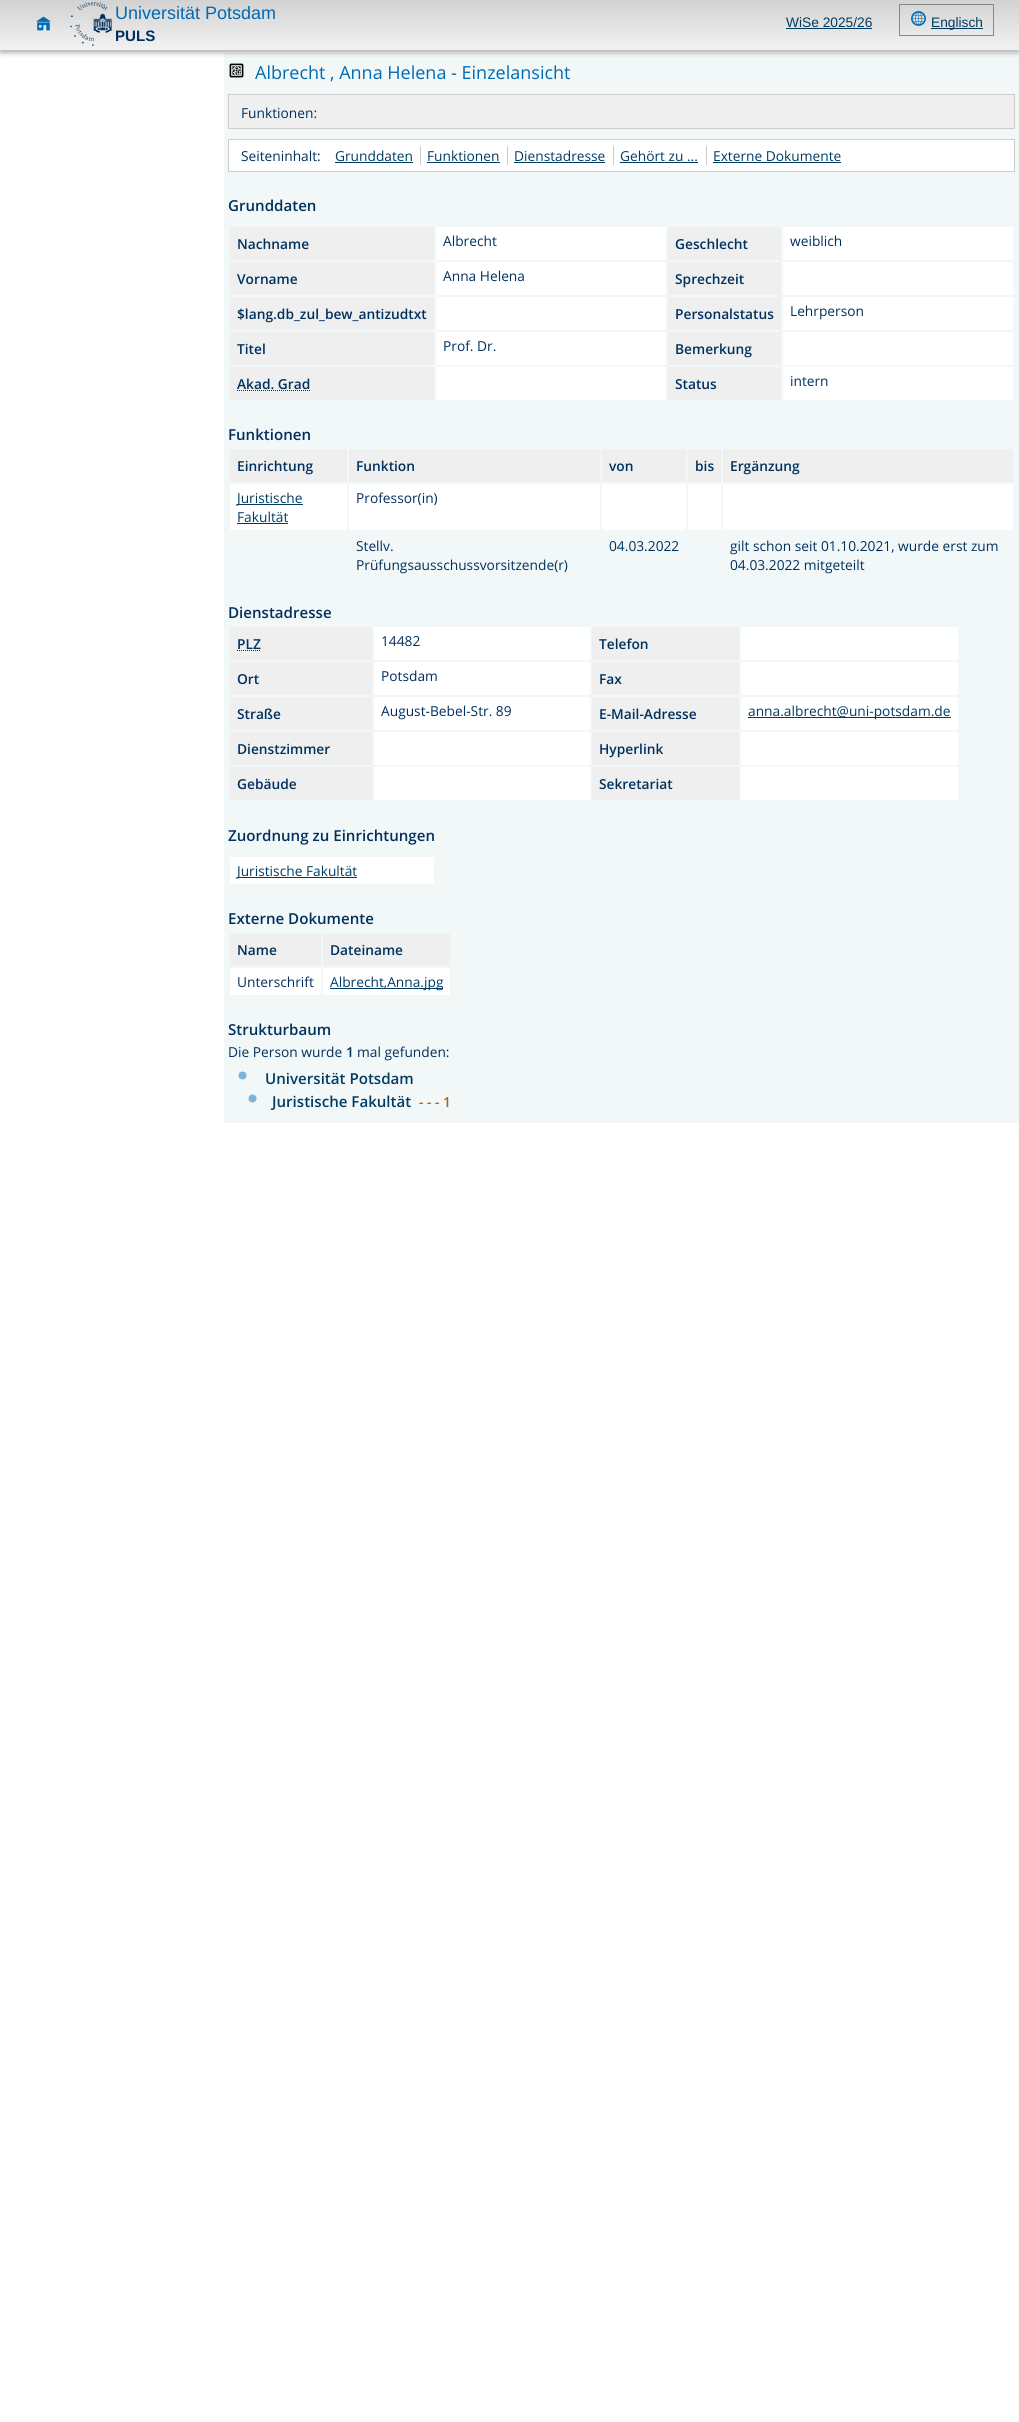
#include <cairo.h>
#include <math.h>
#include <stddef.h>

typedef struct { double x, y; const char *s; } line_t;
typedef struct { double x, y, w, h; unsigned color; } box_t;

static void ink(cairo_t *ctx, unsigned color) {
    cairo_set_source_rgb(ctx, (color >> 16) / 255.0, (color >> 8 & 255) / 255.0, (color & 255) / 255.0);
}

static void round_path(cairo_t *ctx, double x, double y, double w, double h, double r) {
    cairo_new_sub_path(ctx);
    cairo_arc(ctx, x + w - r, y + h - r, r, 0, M_PI / 2);
    cairo_arc(ctx, x + r, y + h - r, r, M_PI / 2, M_PI);
    cairo_arc(ctx, x + r, y + r, r, M_PI, 1.5 * M_PI);
    cairo_arc(ctx, x + w - r, y + r, r, 1.5 * M_PI, 2 * M_PI);
    cairo_close_path(ctx);
}

static void blur_box(cairo_t *ctx, double x, double y, double w, double h, double r, double blur, double alpha) {
    cairo_push_group_with_content(ctx, CAIRO_CONTENT_ALPHA);
    cairo_set_operator(ctx, CAIRO_OPERATOR_SOURCE);
    for (int i = 15; i >= -15 && fmin(w, h) + blur * i / 3 > 0; i -= 2) {
        double e = blur * i / 6;
        cairo_set_source_rgba(ctx, 0, 0, 0, alpha * erfc((i - 1) / 8.5) / 2);
        round_path(ctx, x - e, y - e, w + 2 * e, h + 2 * e, fmax(0, fmin(r + e + blur * .6, fmin(w, h) / 2 + e)));
        cairo_fill(ctx);
    }
    cairo_pattern_t *soft = cairo_pop_group(ctx);
    cairo_mask(ctx, soft);
    cairo_pattern_destroy(soft);
}

static void paste(cairo_t *ctx, const char *path, double x, double y, double w, double h) {
    cairo_surface_t *image = cairo_image_surface_create_from_png(path);
    cairo_save(ctx);
    cairo_set_source_surface(ctx, image, x, y);
    cairo_rectangle(ctx, x, y, w, h);
    cairo_fill(ctx);
    cairo_restore(ctx);
    cairo_surface_destroy(image);
}

int main(void) {
    cairo_surface_t *surface = cairo_image_surface_create(CAIRO_FORMAT_RGB24, 1019, 2422);
    cairo_t *ctx = cairo_create(surface);
    cairo_font_options_t *options = cairo_font_options_create();
    cairo_font_options_set_hint_metrics(options, CAIRO_HINT_METRICS_OFF);
    cairo_font_options_set_hint_style(options, CAIRO_HINT_STYLE_NONE);
    cairo_set_font_options(ctx, options);
    cairo_set_miter_limit(ctx, 4);
    cairo_pattern_t *gradient;
    ink(ctx, 0xFFFFFF);
    cairo_paint(ctx);
    ink(ctx, 0xF2F7F8);
    cairo_rectangle(ctx, 224, 53, 795, 1070);
    cairo_fill(ctx);
    ink(ctx, 0x000000);
    blur_box(ctx, 0, 3, 1019, 50, 0, 2.5, 0.3);
    gradient = cairo_pattern_create_linear(510, 0, 510, 50);
    cairo_pattern_add_color_stop_rgba(gradient, 0, 0.824, 0.824, 0.824, 1);
    cairo_pattern_add_color_stop_rgba(gradient, 1, 0.949, 0.949, 0.949, 1);
    cairo_set_source(ctx, gradient);
    cairo_pattern_destroy(gradient);
    cairo_rectangle(ctx, 0, 0, 1019, 50);
    cairo_fill(ctx);
    paste(ctx, "media/1.png", 36, 16, 15, 15);
    paste(ctx, "media/2.png", 70, 2, 42, 44);
    cairo_select_font_face(ctx, "Liberation Sans", CAIRO_FONT_SLANT_NORMAL, CAIRO_FONT_WEIGHT_NORMAL);
    cairo_set_font_size(ctx, 18);
    ink(ctx, 0x006AB2);
    cairo_move_to(ctx, 115, 19);
    cairo_show_text(ctx, "Universität Potsdam");
    cairo_select_font_face(ctx, "Liberation Sans", CAIRO_FONT_SLANT_NORMAL, CAIRO_FONT_WEIGHT_BOLD);
    cairo_set_font_size(ctx, 15.1);
    ink(ctx, 0x00305E);
    cairo_move_to(ctx, 115, 41);
    cairo_show_text(ctx, "PULS");
    cairo_select_font_face(ctx, "Liberation Sans", CAIRO_FONT_SLANT_NORMAL, CAIRO_FONT_WEIGHT_NORMAL);
    cairo_set_font_size(ctx, 13.75);
    ink(ctx, 0x003C62);
    cairo_move_to(ctx, 786, 27);
    cairo_show_text(ctx, "WiSe 2025/26");
    cairo_rectangle(ctx, 786, 28, 86, 1);
    cairo_fill(ctx);
    cairo_rectangle(ctx, 899.5, 4.5, 94, 31);
    ink(ctx, 0x8A8888);
    cairo_set_line_width(ctx, 1);
    cairo_stroke(ctx);
    paste(ctx, "media/3.png", 911, 11, 15, 15);
    ink(ctx, 0x003C62);
    cairo_rectangle(ctx, 931, 28, 52, 1);
    cairo_fill(ctx);
    cairo_move_to(ctx, 931, 27);
    cairo_show_text(ctx, "Englisch");
    paste(ctx, "media/4.png", 229, 63, 15, 15);
    cairo_select_font_face(ctx, "Open Sans", CAIRO_FONT_SLANT_NORMAL, CAIRO_FONT_WEIGHT_NORMAL);
    cairo_set_font_size(ctx, 18);
    ink(ctx, 0x006AB2);
    cairo_move_to(ctx, 255, 79);
    cairo_show_text(ctx, "Albrecht , Anna Helena - Einzelansicht");
    ink(ctx, 0xEFEFEF);
    cairo_rectangle(ctx, 228.5, 94.5, 786, 34);
    cairo_fill_preserve(ctx);
    ink(ctx, 0xCCCCCC);
    cairo_stroke(ctx);
    cairo_set_font_size(ctx, 13.75);
    ink(ctx, 0x00305E);
    cairo_move_to(ctx, 241, 118);
    cairo_show_text(ctx, "Funktionen:");
    ink(ctx, 0xFFFFFF);
    cairo_rectangle(ctx, 228.5, 139.5, 786, 32);
    cairo_fill_preserve(ctx);
    ink(ctx, 0xCCCCCC);
    cairo_stroke(ctx);
    ink(ctx, 0x00305E);
    cairo_move_to(ctx, 241, 161);
    cairo_show_text(ctx, "Seiteninhalt:");
    ink(ctx, 0x003C62);
    cairo_move_to(ctx, 335, 161);
    cairo_show_text(ctx, "Grunddaten");
    cairo_rectangle(ctx, 335, 162, 78, 1);
    cairo_fill(ctx);
    cairo_move_to(ctx, 427, 161);
    cairo_show_text(ctx, "Funktionen");
    ink(ctx, 0xCCCCCC);
    cairo_rectangle(ctx, 420, 146, 1, 19);
    cairo_fill(ctx);
    ink(ctx, 0x003C62);
    cairo_rectangle(ctx, 427, 162, 73, 1);
    cairo_fill(ctx);
    cairo_move_to(ctx, 514, 161);
    cairo_show_text(ctx, "Dienstadresse");
    ink(ctx, 0xCCCCCC);
    cairo_rectangle(ctx, 507, 146, 1, 19);
    cairo_fill(ctx);
    ink(ctx, 0x003C62);
    cairo_rectangle(ctx, 514, 162, 91, 1);
    cairo_fill(ctx);
    cairo_move_to(ctx, 620, 161);
    cairo_show_text(ctx, "Gehört zu ...");
    ink(ctx, 0xCCCCCC);
    cairo_rectangle(ctx, 613, 146, 1, 19);
    cairo_fill(ctx);
    ink(ctx, 0x003C62);
    cairo_rectangle(ctx, 620, 162, 78, 1);
    cairo_fill(ctx);
    cairo_move_to(ctx, 713, 161);
    cairo_show_text(ctx, "Externe Dokumente");
    ink(ctx, 0xCCCCCC);
    cairo_rectangle(ctx, 706, 146, 1, 19);
    cairo_fill(ctx);
    ink(ctx, 0x003C62);
    cairo_rectangle(ctx, 713, 162, 128, 1);
    cairo_fill(ctx);
    cairo_select_font_face(ctx, "Open Sans SemiBold", CAIRO_FONT_SLANT_NORMAL, CAIRO_FONT_WEIGHT_NORMAL);
    cairo_set_font_size(ctx, 15.1);
    ink(ctx, 0x00305E);
    cairo_move_to(ctx, 228, 211);
    cairo_show_text(ctx, "Grunddaten");
    ink(ctx, 0xEFEFEF);
    cairo_rectangle(ctx, 230, 227, 204, 33);
    cairo_fill(ctx);
    cairo_set_font_size(ctx, 13.75);
    ink(ctx, 0x00305E);
    cairo_move_to(ctx, 237, 249);
    cairo_show_text(ctx, "Nachname");
    ink(ctx, 0xFFFFFF);
    cairo_rectangle(ctx, 436, 227, 230, 33);
    cairo_fill(ctx);
    cairo_select_font_face(ctx, "Open Sans", CAIRO_FONT_SLANT_NORMAL, CAIRO_FONT_WEIGHT_NORMAL);
    ink(ctx, 0x00305E);
    cairo_move_to(ctx, 443, 246);
    cairo_show_text(ctx, "Albrecht");
    ink(ctx, 0xEFEFEF);
    cairo_rectangle(ctx, 668, 227, 113, 33);
    cairo_fill(ctx);
    cairo_select_font_face(ctx, "Open Sans SemiBold", CAIRO_FONT_SLANT_NORMAL, CAIRO_FONT_WEIGHT_NORMAL);
    ink(ctx, 0x00305E);
    cairo_move_to(ctx, 675, 249);
    cairo_show_text(ctx, "Geschlecht");
    ink(ctx, 0xFFFFFF);
    cairo_rectangle(ctx, 783, 227, 230, 33);
    cairo_fill(ctx);
    cairo_select_font_face(ctx, "Open Sans", CAIRO_FONT_SLANT_NORMAL, CAIRO_FONT_WEIGHT_NORMAL);
    ink(ctx, 0x00305E);
    cairo_move_to(ctx, 790, 246);
    cairo_show_text(ctx, "weiblich");
    ink(ctx, 0xEFEFEF);
    cairo_rectangle(ctx, 230, 262, 204, 33);
    cairo_fill(ctx);
    cairo_select_font_face(ctx, "Open Sans SemiBold", CAIRO_FONT_SLANT_NORMAL, CAIRO_FONT_WEIGHT_NORMAL);
    ink(ctx, 0x00305E);
    cairo_move_to(ctx, 237, 284);
    cairo_show_text(ctx, "Vorname");
    ink(ctx, 0xFFFFFF);
    cairo_rectangle(ctx, 436, 262, 230, 33);
    cairo_fill(ctx);
    cairo_select_font_face(ctx, "Open Sans", CAIRO_FONT_SLANT_NORMAL, CAIRO_FONT_WEIGHT_NORMAL);
    ink(ctx, 0x00305E);
    cairo_move_to(ctx, 443, 281);
    cairo_show_text(ctx, "Anna Helena");
    ink(ctx, 0xEFEFEF);
    cairo_rectangle(ctx, 668, 262, 113, 33);
    cairo_fill(ctx);
    cairo_select_font_face(ctx, "Open Sans SemiBold", CAIRO_FONT_SLANT_NORMAL, CAIRO_FONT_WEIGHT_NORMAL);
    ink(ctx, 0x00305E);
    cairo_move_to(ctx, 675, 284);
    cairo_show_text(ctx, "Sprechzeit");
    ink(ctx, 0xFFFFFF);
    cairo_rectangle(ctx, 783, 262, 230, 33);
    cairo_fill(ctx);
    ink(ctx, 0xEFEFEF);
    cairo_rectangle(ctx, 230, 297, 204, 33);
    cairo_fill(ctx);
    ink(ctx, 0x00305E);
    cairo_move_to(ctx, 237, 319);
    cairo_show_text(ctx, "$lang.db_zul_bew_antizudtxt");
    ink(ctx, 0xFFFFFF);
    cairo_rectangle(ctx, 436, 297, 230, 33);
    cairo_fill(ctx);
    ink(ctx, 0xEFEFEF);
    cairo_rectangle(ctx, 668, 297, 113, 33);
    cairo_fill(ctx);
    ink(ctx, 0x00305E);
    cairo_move_to(ctx, 675, 319);
    cairo_show_text(ctx, "Personalstatus");
    ink(ctx, 0xFFFFFF);
    cairo_rectangle(ctx, 783, 297, 230, 33);
    cairo_fill(ctx);
    cairo_select_font_face(ctx, "Open Sans", CAIRO_FONT_SLANT_NORMAL, CAIRO_FONT_WEIGHT_NORMAL);
    ink(ctx, 0x00305E);
    cairo_move_to(ctx, 790, 316);
    cairo_show_text(ctx, "Lehrperson");
    ink(ctx, 0xEFEFEF);
    cairo_rectangle(ctx, 230, 332, 204, 33);
    cairo_fill(ctx);
    cairo_select_font_face(ctx, "Open Sans SemiBold", CAIRO_FONT_SLANT_NORMAL, CAIRO_FONT_WEIGHT_NORMAL);
    ink(ctx, 0x00305E);
    cairo_move_to(ctx, 237, 354);
    cairo_show_text(ctx, "Titel");
    ink(ctx, 0xFFFFFF);
    cairo_rectangle(ctx, 436, 332, 230, 33);
    cairo_fill(ctx);
    cairo_select_font_face(ctx, "Open Sans", CAIRO_FONT_SLANT_NORMAL, CAIRO_FONT_WEIGHT_NORMAL);
    ink(ctx, 0x00305E);
    cairo_move_to(ctx, 443, 351);
    cairo_show_text(ctx, "Prof. Dr.");
    ink(ctx, 0xEFEFEF);
    cairo_rectangle(ctx, 668, 332, 113, 33);
    cairo_fill(ctx);
    cairo_select_font_face(ctx, "Open Sans SemiBold", CAIRO_FONT_SLANT_NORMAL, CAIRO_FONT_WEIGHT_NORMAL);
    ink(ctx, 0x00305E);
    cairo_move_to(ctx, 675, 354);
    cairo_show_text(ctx, "Bemerkung");
    ink(ctx, 0xFFFFFF);
    cairo_rectangle(ctx, 783, 332, 230, 33);
    cairo_fill(ctx);
    ink(ctx, 0xEFEFEF);
    cairo_rectangle(ctx, 230, 367, 204, 33);
    cairo_fill(ctx);
    ink(ctx, 0x00305E);
    cairo_move_to(ctx, 237, 389);
    cairo_show_text(ctx, "Akad. Grad");
    cairo_new_path(ctx);
    cairo_move_to(ctx, 237, 390.5);
    cairo_line_to(ctx, 310.5, 390.5);
    cairo_set_dash(ctx, (double[]){1, 1}, 2, 0);
    cairo_stroke(ctx);
    ink(ctx, 0xFFFFFF);
    cairo_rectangle(ctx, 436, 367, 230, 33);
    cairo_fill(ctx);
    ink(ctx, 0xEFEFEF);
    cairo_rectangle(ctx, 668, 367, 113, 33);
    cairo_fill(ctx);
    ink(ctx, 0x00305E);
    cairo_move_to(ctx, 675, 389);
    cairo_show_text(ctx, "Status");
    ink(ctx, 0xFFFFFF);
    cairo_rectangle(ctx, 783, 367, 230, 33);
    cairo_fill(ctx);
    cairo_select_font_face(ctx, "Open Sans", CAIRO_FONT_SLANT_NORMAL, CAIRO_FONT_WEIGHT_NORMAL);
    ink(ctx, 0x00305E);
    cairo_move_to(ctx, 790, 386);
    cairo_show_text(ctx, "intern");
    cairo_select_font_face(ctx, "Open Sans SemiBold", CAIRO_FONT_SLANT_NORMAL, CAIRO_FONT_WEIGHT_NORMAL);
    cairo_set_font_size(ctx, 15.1);
    cairo_move_to(ctx, 228, 440);
    cairo_show_text(ctx, "Funktionen");
    ink(ctx, 0xEFEFEF);
    cairo_rectangle(ctx, 230, 449, 117, 33);
    cairo_fill(ctx);
    cairo_set_font_size(ctx, 13.75);
    ink(ctx, 0x00305E);
    cairo_move_to(ctx, 237, 471);
    cairo_show_text(ctx, "Einrichtung");
    ink(ctx, 0xEFEFEF);
    cairo_rectangle(ctx, 349, 449, 251, 33);
    cairo_fill(ctx);
    ink(ctx, 0x00305E);
    cairo_move_to(ctx, 356, 471);
    cairo_show_text(ctx, "Funktion");
    ink(ctx, 0xEFEFEF);
    cairo_rectangle(ctx, 602, 449, 84, 33);
    cairo_fill(ctx);
    ink(ctx, 0x00305E);
    cairo_move_to(ctx, 609, 471);
    cairo_show_text(ctx, "von");
    ink(ctx, 0xEFEFEF);
    cairo_rectangle(ctx, 688, 449, 33, 33);
    cairo_fill(ctx);
    ink(ctx, 0x00305E);
    cairo_move_to(ctx, 695, 471);
    cairo_show_text(ctx, "bis");
    ink(ctx, 0xEFEFEF);
    cairo_rectangle(ctx, 723, 449, 290, 33);
    cairo_fill(ctx);
    ink(ctx, 0x00305E);
    cairo_move_to(ctx, 730, 471);
    cairo_show_text(ctx, "Ergänzung");
    ink(ctx, 0xFFFFFF);
    cairo_rectangle(ctx, 230, 484, 117, 46);
    cairo_fill(ctx);
    ink(ctx, 0x003C62);
    cairo_rectangle(ctx, 237, 504, 66, 1);
    cairo_fill(ctx);
    cairo_select_font_face(ctx, "Open Sans", CAIRO_FONT_SLANT_NORMAL, CAIRO_FONT_WEIGHT_NORMAL);
    cairo_move_to(ctx, 237, 503);
    cairo_show_text(ctx, "Juristische");
    cairo_move_to(ctx, 237, 522);
    cairo_show_text(ctx, "Fakultät");
    cairo_rectangle(ctx, 237, 523, 51, 1);
    cairo_fill(ctx);
    ink(ctx, 0xFFFFFF);
    cairo_rectangle(ctx, 349, 484, 251, 46);
    cairo_fill(ctx);
    ink(ctx, 0x00305E);
    cairo_move_to(ctx, 356, 503);
    cairo_show_text(ctx, "Professor(in)");
    {
        static const box_t items[] = {
            {602, 484, 84, 46, 0xFFFFFF},
            {688, 484, 33, 46, 0xFFFFFF},
            {723, 484, 290, 46, 0xFFFFFF},
        };
        for (size_t i = 0; i < sizeof items / sizeof *items; i++) {
            ink(ctx, items[i].color);
            cairo_rectangle(ctx, items[i].x, items[i].y, items[i].w, items[i].h);
            cairo_fill(ctx);
        }
    }
    ink(ctx, 0x00305E);
    {
        static const line_t items[] = {
            {356, 551, "Stellv."},
            {356, 570, "Prüfungsausschussvorsitzende(r)"},
            {609, 551, "04.03.2022"},
            {730, 551, "gilt schon seit 01.10.2021, wurde erst zum"},
            {730, 570, "04.03.2022 mitgeteilt"},
        };
        for (size_t i = 0; i < sizeof items / sizeof *items; i++) {
            cairo_move_to(ctx, items[i].x, items[i].y);
            cairo_show_text(ctx, items[i].s);
        }
    }
    cairo_select_font_face(ctx, "Open Sans SemiBold", CAIRO_FONT_SLANT_NORMAL, CAIRO_FONT_WEIGHT_NORMAL);
    cairo_set_font_size(ctx, 15.1);
    cairo_move_to(ctx, 228, 618);
    cairo_show_text(ctx, "Dienstadresse");
    ink(ctx, 0xEFEFEF);
    cairo_rectangle(ctx, 230, 627, 142, 33);
    cairo_fill(ctx);
    cairo_set_font_size(ctx, 13.75);
    ink(ctx, 0x00305E);
    cairo_move_to(ctx, 237, 649);
    cairo_show_text(ctx, "PLZ");
    cairo_new_path(ctx);
    cairo_move_to(ctx, 237, 650.5);
    cairo_line_to(ctx, 261, 650.5);
    cairo_stroke(ctx);
    ink(ctx, 0xFFFFFF);
    cairo_rectangle(ctx, 374, 627, 216, 33);
    cairo_fill(ctx);
    cairo_select_font_face(ctx, "Open Sans", CAIRO_FONT_SLANT_NORMAL, CAIRO_FONT_WEIGHT_NORMAL);
    ink(ctx, 0x00305E);
    cairo_move_to(ctx, 381, 646);
    cairo_show_text(ctx, "14482");
    ink(ctx, 0xEFEFEF);
    cairo_rectangle(ctx, 592, 627, 147, 33);
    cairo_fill(ctx);
    cairo_select_font_face(ctx, "Open Sans SemiBold", CAIRO_FONT_SLANT_NORMAL, CAIRO_FONT_WEIGHT_NORMAL);
    ink(ctx, 0x00305E);
    cairo_move_to(ctx, 599, 649);
    cairo_show_text(ctx, "Telefon");
    ink(ctx, 0xFFFFFF);
    cairo_rectangle(ctx, 741, 627, 217, 33);
    cairo_fill(ctx);
    ink(ctx, 0xEFEFEF);
    cairo_rectangle(ctx, 230, 662, 142, 33);
    cairo_fill(ctx);
    ink(ctx, 0x00305E);
    cairo_move_to(ctx, 237, 684);
    cairo_show_text(ctx, "Ort");
    ink(ctx, 0xFFFFFF);
    cairo_rectangle(ctx, 374, 662, 216, 33);
    cairo_fill(ctx);
    cairo_select_font_face(ctx, "Open Sans", CAIRO_FONT_SLANT_NORMAL, CAIRO_FONT_WEIGHT_NORMAL);
    ink(ctx, 0x00305E);
    cairo_move_to(ctx, 381, 681);
    cairo_show_text(ctx, "Potsdam");
    ink(ctx, 0xEFEFEF);
    cairo_rectangle(ctx, 592, 662, 147, 33);
    cairo_fill(ctx);
    cairo_select_font_face(ctx, "Open Sans SemiBold", CAIRO_FONT_SLANT_NORMAL, CAIRO_FONT_WEIGHT_NORMAL);
    ink(ctx, 0x00305E);
    cairo_move_to(ctx, 599, 684);
    cairo_show_text(ctx, "Fax");
    ink(ctx, 0xFFFFFF);
    cairo_rectangle(ctx, 741, 662, 217, 33);
    cairo_fill(ctx);
    ink(ctx, 0xEFEFEF);
    cairo_rectangle(ctx, 230, 697, 142, 33);
    cairo_fill(ctx);
    ink(ctx, 0x00305E);
    cairo_move_to(ctx, 237, 719);
    cairo_show_text(ctx, "Straße");
    ink(ctx, 0xFFFFFF);
    cairo_rectangle(ctx, 374, 697, 216, 33);
    cairo_fill(ctx);
    cairo_select_font_face(ctx, "Open Sans", CAIRO_FONT_SLANT_NORMAL, CAIRO_FONT_WEIGHT_NORMAL);
    ink(ctx, 0x00305E);
    cairo_move_to(ctx, 381, 716);
    cairo_show_text(ctx, "August-Bebel-Str. 89");
    ink(ctx, 0xEFEFEF);
    cairo_rectangle(ctx, 592, 697, 147, 33);
    cairo_fill(ctx);
    cairo_select_font_face(ctx, "Open Sans SemiBold", CAIRO_FONT_SLANT_NORMAL, CAIRO_FONT_WEIGHT_NORMAL);
    ink(ctx, 0x00305E);
    cairo_move_to(ctx, 599, 719);
    cairo_show_text(ctx, "E-Mail-Adresse");
    ink(ctx, 0xFFFFFF);
    cairo_rectangle(ctx, 741, 697, 217, 33);
    cairo_fill(ctx);
    ink(ctx, 0x003C62);
    cairo_rectangle(ctx, 748, 717, 203, 1);
    cairo_fill(ctx);
    cairo_select_font_face(ctx, "Open Sans", CAIRO_FONT_SLANT_NORMAL, CAIRO_FONT_WEIGHT_NORMAL);
    cairo_move_to(ctx, 748, 716);
    cairo_show_text(ctx, "anna.albrecht@uni-potsdam.de");
    ink(ctx, 0xEFEFEF);
    cairo_rectangle(ctx, 230, 732, 142, 33);
    cairo_fill(ctx);
    cairo_select_font_face(ctx, "Open Sans SemiBold", CAIRO_FONT_SLANT_NORMAL, CAIRO_FONT_WEIGHT_NORMAL);
    ink(ctx, 0x00305E);
    cairo_move_to(ctx, 237, 754);
    cairo_show_text(ctx, "Dienstzimmer");
    ink(ctx, 0xFFFFFF);
    cairo_rectangle(ctx, 374, 732, 216, 33);
    cairo_fill(ctx);
    ink(ctx, 0xEFEFEF);
    cairo_rectangle(ctx, 592, 732, 147, 33);
    cairo_fill(ctx);
    ink(ctx, 0x00305E);
    cairo_move_to(ctx, 599, 754);
    cairo_show_text(ctx, "Hyperlink");
    ink(ctx, 0xFFFFFF);
    cairo_rectangle(ctx, 741, 732, 217, 33);
    cairo_fill(ctx);
    ink(ctx, 0xEFEFEF);
    cairo_rectangle(ctx, 230, 767, 142, 33);
    cairo_fill(ctx);
    ink(ctx, 0x00305E);
    cairo_move_to(ctx, 237, 789);
    cairo_show_text(ctx, "Gebäude");
    ink(ctx, 0xFFFFFF);
    cairo_rectangle(ctx, 374, 767, 216, 33);
    cairo_fill(ctx);
    ink(ctx, 0xEFEFEF);
    cairo_rectangle(ctx, 592, 767, 147, 33);
    cairo_fill(ctx);
    ink(ctx, 0x00305E);
    cairo_move_to(ctx, 599, 789);
    cairo_show_text(ctx, "Sekretariat");
    ink(ctx, 0xFFFFFF);
    cairo_rectangle(ctx, 741, 767, 217, 33);
    cairo_fill(ctx);
    cairo_set_font_size(ctx, 15.1);
    ink(ctx, 0x00305E);
    cairo_move_to(ctx, 228, 841);
    cairo_show_text(ctx, "Zuordnung zu Einrichtungen");
    ink(ctx, 0xFFFFFF);
    cairo_rectangle(ctx, 230, 857, 204, 27);
    cairo_fill(ctx);
    ink(ctx, 0x003C62);
    cairo_rectangle(ctx, 237, 877, 120, 1);
    cairo_fill(ctx);
    cairo_select_font_face(ctx, "Open Sans", CAIRO_FONT_SLANT_NORMAL, CAIRO_FONT_WEIGHT_NORMAL);
    cairo_set_font_size(ctx, 13.75);
    cairo_move_to(ctx, 237, 876);
    cairo_show_text(ctx, "Juristische Fakultät");
    cairo_select_font_face(ctx, "Open Sans SemiBold", CAIRO_FONT_SLANT_NORMAL, CAIRO_FONT_WEIGHT_NORMAL);
    cairo_set_font_size(ctx, 15.1);
    ink(ctx, 0x00305E);
    cairo_move_to(ctx, 228, 924);
    cairo_show_text(ctx, "Externe Dokumente");
    ink(ctx, 0xEFEFEF);
    cairo_rectangle(ctx, 230, 933, 91, 33);
    cairo_fill(ctx);
    cairo_set_font_size(ctx, 13.75);
    ink(ctx, 0x00305E);
    cairo_move_to(ctx, 237, 955);
    cairo_show_text(ctx, "Name");
    ink(ctx, 0xEFEFEF);
    cairo_rectangle(ctx, 323, 933, 127, 33);
    cairo_fill(ctx);
    ink(ctx, 0x00305E);
    cairo_move_to(ctx, 330, 955);
    cairo_show_text(ctx, "Dateiname");
    ink(ctx, 0xFFFFFF);
    cairo_rectangle(ctx, 230, 968, 91, 27);
    cairo_fill(ctx);
    cairo_select_font_face(ctx, "Open Sans", CAIRO_FONT_SLANT_NORMAL, CAIRO_FONT_WEIGHT_NORMAL);
    ink(ctx, 0x00305E);
    cairo_move_to(ctx, 237, 987);
    cairo_show_text(ctx, "Unterschrift");
    ink(ctx, 0xFFFFFF);
    cairo_rectangle(ctx, 323, 968, 127, 27);
    cairo_fill(ctx);
    ink(ctx, 0x003C62);
    cairo_rectangle(ctx, 330, 988, 113, 1);
    cairo_fill(ctx);
    cairo_move_to(ctx, 330, 987);
    cairo_show_text(ctx, "Albrecht,Anna.jpg");
    cairo_select_font_face(ctx, "Open Sans SemiBold", CAIRO_FONT_SLANT_NORMAL, CAIRO_FONT_WEIGHT_NORMAL);
    cairo_set_font_size(ctx, 15.1);
    ink(ctx, 0x00305E);
    cairo_move_to(ctx, 228, 1035);
    cairo_show_text(ctx, "Strukturbaum");
    cairo_select_font_face(ctx, "Open Sans", CAIRO_FONT_SLANT_NORMAL, CAIRO_FONT_WEIGHT_NORMAL);
    cairo_set_font_size(ctx, 13.75);
    cairo_move_to(ctx, 228, 1057);
    cairo_show_text(ctx, "Die Person wurde");
    cairo_select_font_face(ctx, "Open Sans SemiBold", CAIRO_FONT_SLANT_NORMAL, CAIRO_FONT_WEIGHT_NORMAL);
    cairo_move_to(ctx, 346, 1057);
    cairo_show_text(ctx, "1");
    cairo_select_font_face(ctx, "Open Sans", CAIRO_FONT_SLANT_NORMAL, CAIRO_FONT_WEIGHT_NORMAL);
    cairo_move_to(ctx, 357, 1057);
    cairo_show_text(ctx, "mal gefunden:");
    ink(ctx, 0x7FB4D8);
    cairo_new_path(ctx);
    cairo_arc(ctx, 242.5, 1075.5, 4, 0, 2 * M_PI);
    cairo_fill(ctx);
    cairo_select_font_face(ctx, "Open Sans SemiBold", CAIRO_FONT_SLANT_NORMAL, CAIRO_FONT_WEIGHT_NORMAL);
    cairo_set_font_size(ctx, 15.1);
    ink(ctx, 0x003C62);
    cairo_move_to(ctx, 265, 1084);
    cairo_show_text(ctx, "Universität Potsdam");
    ink(ctx, 0x7FB4D8);
    cairo_new_path(ctx);
    cairo_arc(ctx, 252.5, 1098.5, 4, 0, 2 * M_PI);
    cairo_fill(ctx);
    ink(ctx, 0x003C62);
    cairo_move_to(ctx, 272, 1107);
    cairo_show_text(ctx, "Juristische Fakultät");
    cairo_set_font_size(ctx, 13.75);
    ink(ctx, 0xB36003);
    cairo_move_to(ctx, 419, 1107);
    cairo_show_text(ctx, "- - - 1");
    cairo_surface_write_to_png(surface, "image.png");
    cairo_font_options_destroy(options);
    cairo_destroy(ctx);
    cairo_surface_destroy(surface);
    return 0;
}
